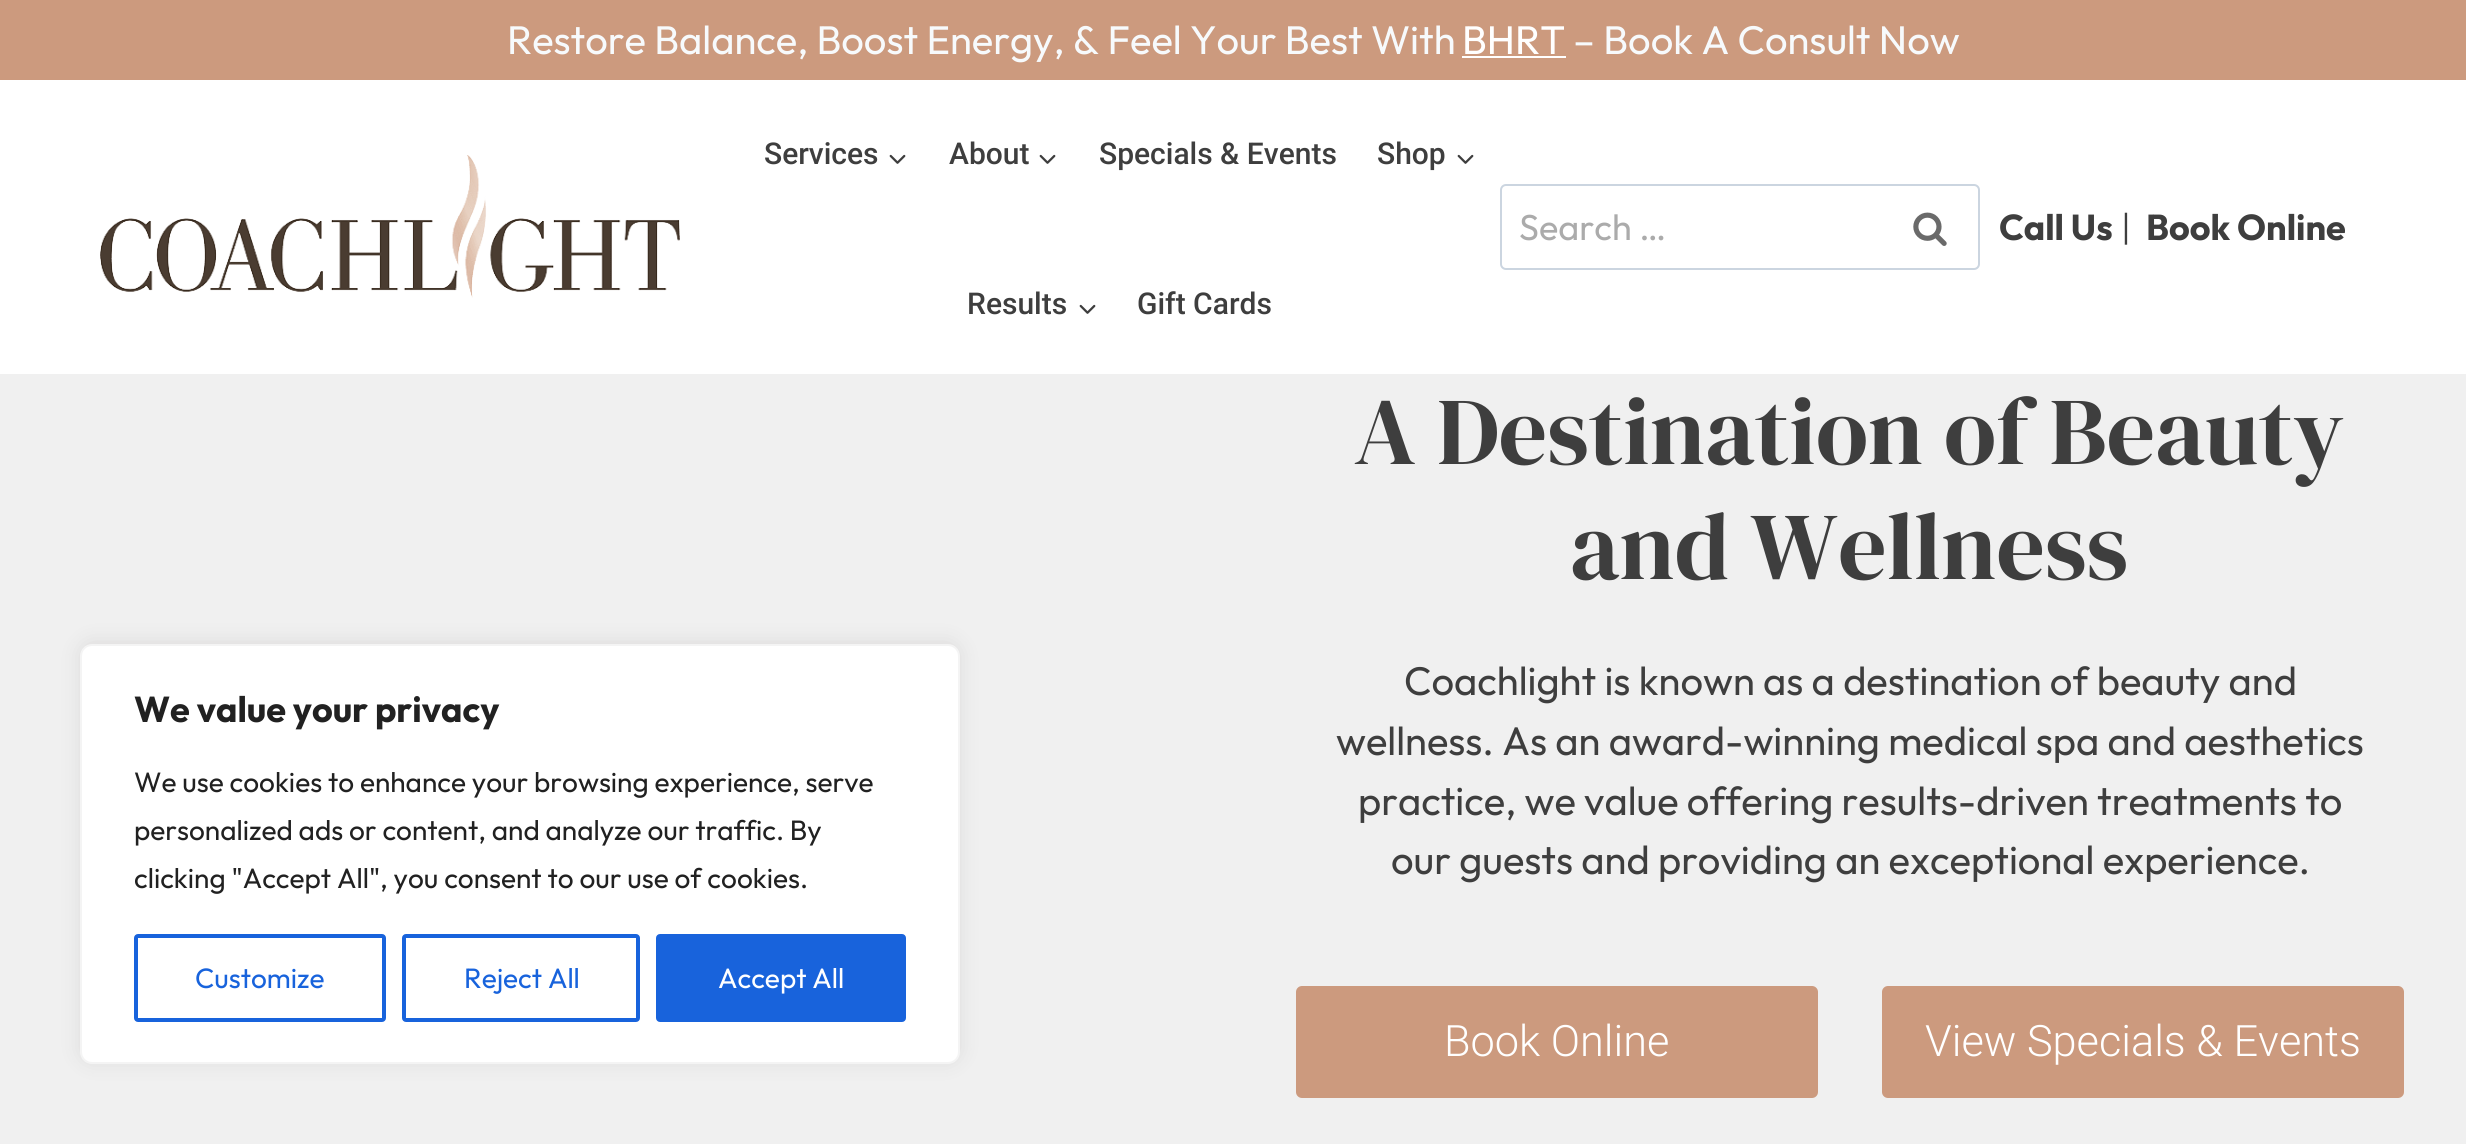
#include <cairo.h>
#include <math.h>
#include <stddef.h>

typedef struct { double x, y; const char *s; } line_t;

static void ink(cairo_t *ctx, unsigned color) {
    cairo_set_source_rgb(ctx, (color >> 16) / 255.0, (color >> 8 & 255) / 255.0, (color & 255) / 255.0);
}

static void round_path(cairo_t *ctx, double x, double y, double w, double h, double r) {
    cairo_new_sub_path(ctx);
    cairo_arc(ctx, x + w - r, y + h - r, r, 0, M_PI / 2);
    cairo_arc(ctx, x + r, y + h - r, r, M_PI / 2, M_PI);
    cairo_arc(ctx, x + r, y + r, r, M_PI, 1.5 * M_PI);
    cairo_arc(ctx, x + w - r, y + r, r, 1.5 * M_PI, 2 * M_PI);
    cairo_close_path(ctx);
}

static void blur_box(cairo_t *ctx, double x, double y, double w, double h, double r, double blur, double alpha) {
    cairo_push_group_with_content(ctx, CAIRO_CONTENT_ALPHA);
    cairo_set_operator(ctx, CAIRO_OPERATOR_SOURCE);
    for (int i = 15; i >= -15 && fmin(w, h) + blur * i / 3 > 0; i -= 2) {
        double e = blur * i / 6;
        cairo_set_source_rgba(ctx, 0, 0, 0, alpha * erfc((i - 1) / 8.5) / 2);
        round_path(ctx, x - e, y - e, w + 2 * e, h + 2 * e, fmax(0, fmin(r + e + blur * .6, fmin(w, h) / 2 + e)));
        cairo_fill(ctx);
    }
    cairo_pattern_t *soft = cairo_pop_group(ctx);
    cairo_mask(ctx, soft);
    cairo_pattern_destroy(soft);
}

static void paste(cairo_t *ctx, const char *path, double x, double y, double w, double h) {
    cairo_surface_t *image = cairo_image_surface_create_from_png(path);
    cairo_save(ctx);
    cairo_set_source_surface(ctx, image, x, y);
    cairo_rectangle(ctx, x, y, w, h);
    cairo_fill(ctx);
    cairo_restore(ctx);
    cairo_surface_destroy(image);
}

int main(void) {
    cairo_surface_t *surface = cairo_image_surface_create(CAIRO_FORMAT_RGB24, 2466, 1144);
    cairo_t *ctx = cairo_create(surface);
    cairo_font_options_t *options = cairo_font_options_create();
    cairo_font_options_set_hint_metrics(options, CAIRO_HINT_METRICS_OFF);
    cairo_font_options_set_hint_style(options, CAIRO_HINT_STYLE_NONE);
    cairo_set_font_options(ctx, options);
    cairo_set_miter_limit(ctx, 4);
    ink(ctx, 0xFFFFFF);
    cairo_paint(ctx);
    ink(ctx, 0xF0F0F0);
    cairo_rectangle(ctx, 0, 374, 2466, 770);
    cairo_fill(ctx);
    ink(ctx, 0xACABAB);
    blur_box(ctx, 80, 642, 880, 420, 12, 10, 0.3);
    ink(ctx, 0xFFFFFF);
    round_path(ctx, 81, 645, 878, 418, 11);
    cairo_fill_preserve(ctx);
    ink(ctx, 0xF4F4F4);
    cairo_stroke(ctx);
    cairo_select_font_face(ctx, "Outfit", CAIRO_FONT_SLANT_NORMAL, CAIRO_FONT_WEIGHT_BOLD);
    cairo_set_font_size(ctx, 36);
    ink(ctx, 0x212121);
    cairo_move_to(ctx, 134, 722);
    cairo_show_text(ctx, "We value your privacy");
    cairo_select_font_face(ctx, "Outfit", CAIRO_FONT_SLANT_NORMAL, CAIRO_FONT_WEIGHT_NORMAL);
    cairo_set_font_size(ctx, 28);
    {
        static const line_t items[] = {
            {134, 792, "We use cookies to enhance your browsing experience, serve"},
            {134, 840, "personalized ads or content, and analyze our traffic. By"},
            {134, 888, "clicking \"Accept All\", you consent to our use of cookies."},
        };
        for (size_t i = 0; i < sizeof items / sizeof *items; i++) {
            cairo_move_to(ctx, items[i].x, items[i].y);
            cairo_show_text(ctx, items[i].s);
        }
    }
    round_path(ctx, 136, 936, 248, 84, 2);
    ink(ctx, 0x1863DC);
    cairo_set_line_width(ctx, 4);
    cairo_stroke(ctx);
    cairo_move_to(ctx, 195, 988);
    cairo_show_text(ctx, "Customize");
    round_path(ctx, 404, 936, 234, 84, 2);
    cairo_stroke(ctx);
    cairo_move_to(ctx, 464, 988);
    cairo_show_text(ctx, "Reject All");
    round_path(ctx, 658, 936, 246, 84, 2);
    cairo_fill_preserve(ctx);
    cairo_stroke(ctx);
    ink(ctx, 0xFFFFFF);
    cairo_move_to(ctx, 718, 988);
    cairo_show_text(ctx, "Accept All");
    ink(ctx, 0xCC9A7E);
    cairo_rectangle(ctx, 0, 0, 2466, 80);
    cairo_fill(ctx);
    cairo_set_font_size(ctx, 39.9);
    ink(ctx, 0xF7FAFC);
    cairo_move_to(ctx, 507, 54);
    cairo_show_text(ctx, "Restore Balance, Boost Energy, & Feel Your Best With");
    ink(ctx, 0xFFFFFF);
    cairo_move_to(ctx, 1462, 54);
    cairo_show_text(ctx, "BHRT");
    cairo_rectangle(ctx, 1462, 56, 104, 2);
    cairo_fill(ctx);
    ink(ctx, 0xF7FAFC);
    cairo_move_to(ctx, 1573, 54);
    cairo_show_text(ctx, "– Book A Consult Now");
    paste(ctx, "media/1.png", 100, 155, 580, 143);
    cairo_select_font_face(ctx, "Roboto Medium", CAIRO_FONT_SLANT_NORMAL, CAIRO_FONT_WEIGHT_NORMAL);
    cairo_set_font_size(ctx, 30);
    ink(ctx, 0x3E3E3E);
    cairo_move_to(ctx, 764, 164);
    cairo_show_text(ctx, "Services");
    paste(ctx, "media/2.png", 889, 154, 17, 10);
    cairo_move_to(ctx, 949, 164);
    cairo_show_text(ctx, "About");
    paste(ctx, "media/2.png", 1039, 154, 17, 10);
    cairo_move_to(ctx, 1099, 164);
    cairo_show_text(ctx, "Specials & Events");
    cairo_move_to(ctx, 1377, 164);
    cairo_show_text(ctx, "Shop");
    paste(ctx, "media/2.png", 1457, 154, 17, 10);
    cairo_move_to(ctx, 967, 314);
    cairo_show_text(ctx, "Results");
    paste(ctx, "media/2.png", 1079, 304, 17, 10);
    cairo_move_to(ctx, 1137, 314);
    cairo_show_text(ctx, "Gift Cards");
    round_path(ctx, 1501, 185, 478, 84, 5);
    ink(ctx, 0xCBD5E0);
    cairo_set_line_width(ctx, 2);
    cairo_stroke(ctx);
    cairo_select_font_face(ctx, "Outfit", CAIRO_FONT_SLANT_NORMAL, CAIRO_FONT_WEIGHT_NORMAL);
    cairo_set_font_size(ctx, 36);
    ink(ctx, 0xABABAB);
    cairo_move_to(ctx, 1519, 240);
    cairo_show_text(ctx, "Search …");
    paste(ctx, "media/3.png", 1913, 212, 34, 34);
    cairo_select_font_face(ctx, "Outfit", CAIRO_FONT_SLANT_NORMAL, CAIRO_FONT_WEIGHT_BOLD);
    ink(ctx, 0x3E3E3E);
    cairo_move_to(ctx, 1999, 240);
    cairo_show_text(ctx, "Call Us");
    cairo_select_font_face(ctx, "Outfit Light", CAIRO_FONT_SLANT_NORMAL, CAIRO_FONT_WEIGHT_NORMAL);
    cairo_move_to(ctx, 2121, 240);
    cairo_show_text(ctx, "|");
    cairo_select_font_face(ctx, "Outfit", CAIRO_FONT_SLANT_NORMAL, CAIRO_FONT_WEIGHT_BOLD);
    cairo_move_to(ctx, 2146, 240);
    cairo_show_text(ctx, "Book Online");
    cairo_select_font_face(ctx, "DM Serif Display", CAIRO_FONT_SLANT_NORMAL, CAIRO_FONT_WEIGHT_NORMAL);
    cairo_set_font_size(ctx, 95.5);
    cairo_move_to(ctx, 1354, 464);
    cairo_show_text(ctx, "A Destination of Beauty");
    cairo_move_to(ctx, 1570, 579);
    cairo_show_text(ctx, "and Wellness");
    cairo_select_font_face(ctx, "Outfit", CAIRO_FONT_SLANT_NORMAL, CAIRO_FONT_WEIGHT_NORMAL);
    cairo_set_font_size(ctx, 39.9);
    {
        static const line_t items[] = {
            {1404, 695, "Coachlight is known as a destination of beauty and"},
            {1336, 755, "wellness. As an award-winning medical spa and aesthetics"},
            {1358, 815, "practice, we value offering results-driven treatments to"},
            {1391, 874, "our guests and providing an exceptional experience."},
        };
        for (size_t i = 0; i < sizeof items / sizeof *items; i++) {
            cairo_move_to(ctx, items[i].x, items[i].y);
            cairo_show_text(ctx, items[i].s);
        }
    }
    ink(ctx, 0xCC9A7E);
    round_path(ctx, 1296, 986, 522, 112, 6);
    cairo_fill(ctx);
    cairo_select_font_face(ctx, "Roboto Light", CAIRO_FONT_SLANT_NORMAL, CAIRO_FONT_WEIGHT_NORMAL);
    cairo_set_font_size(ctx, 43.25);
    ink(ctx, 0xFFFFFF);
    cairo_move_to(ctx, 1444, 1056);
    cairo_show_text(ctx, "Book Online");
    ink(ctx, 0xCC9A7E);
    round_path(ctx, 1882, 986, 522, 112, 6);
    cairo_fill(ctx);
    ink(ctx, 0xFFFFFF);
    cairo_move_to(ctx, 1925, 1056);
    cairo_show_text(ctx, "View Specials & Events");
    cairo_surface_write_to_png(surface, "image.png");
    cairo_font_options_destroy(options);
    cairo_destroy(ctx);
    cairo_surface_destroy(surface);
    return 0;
}
